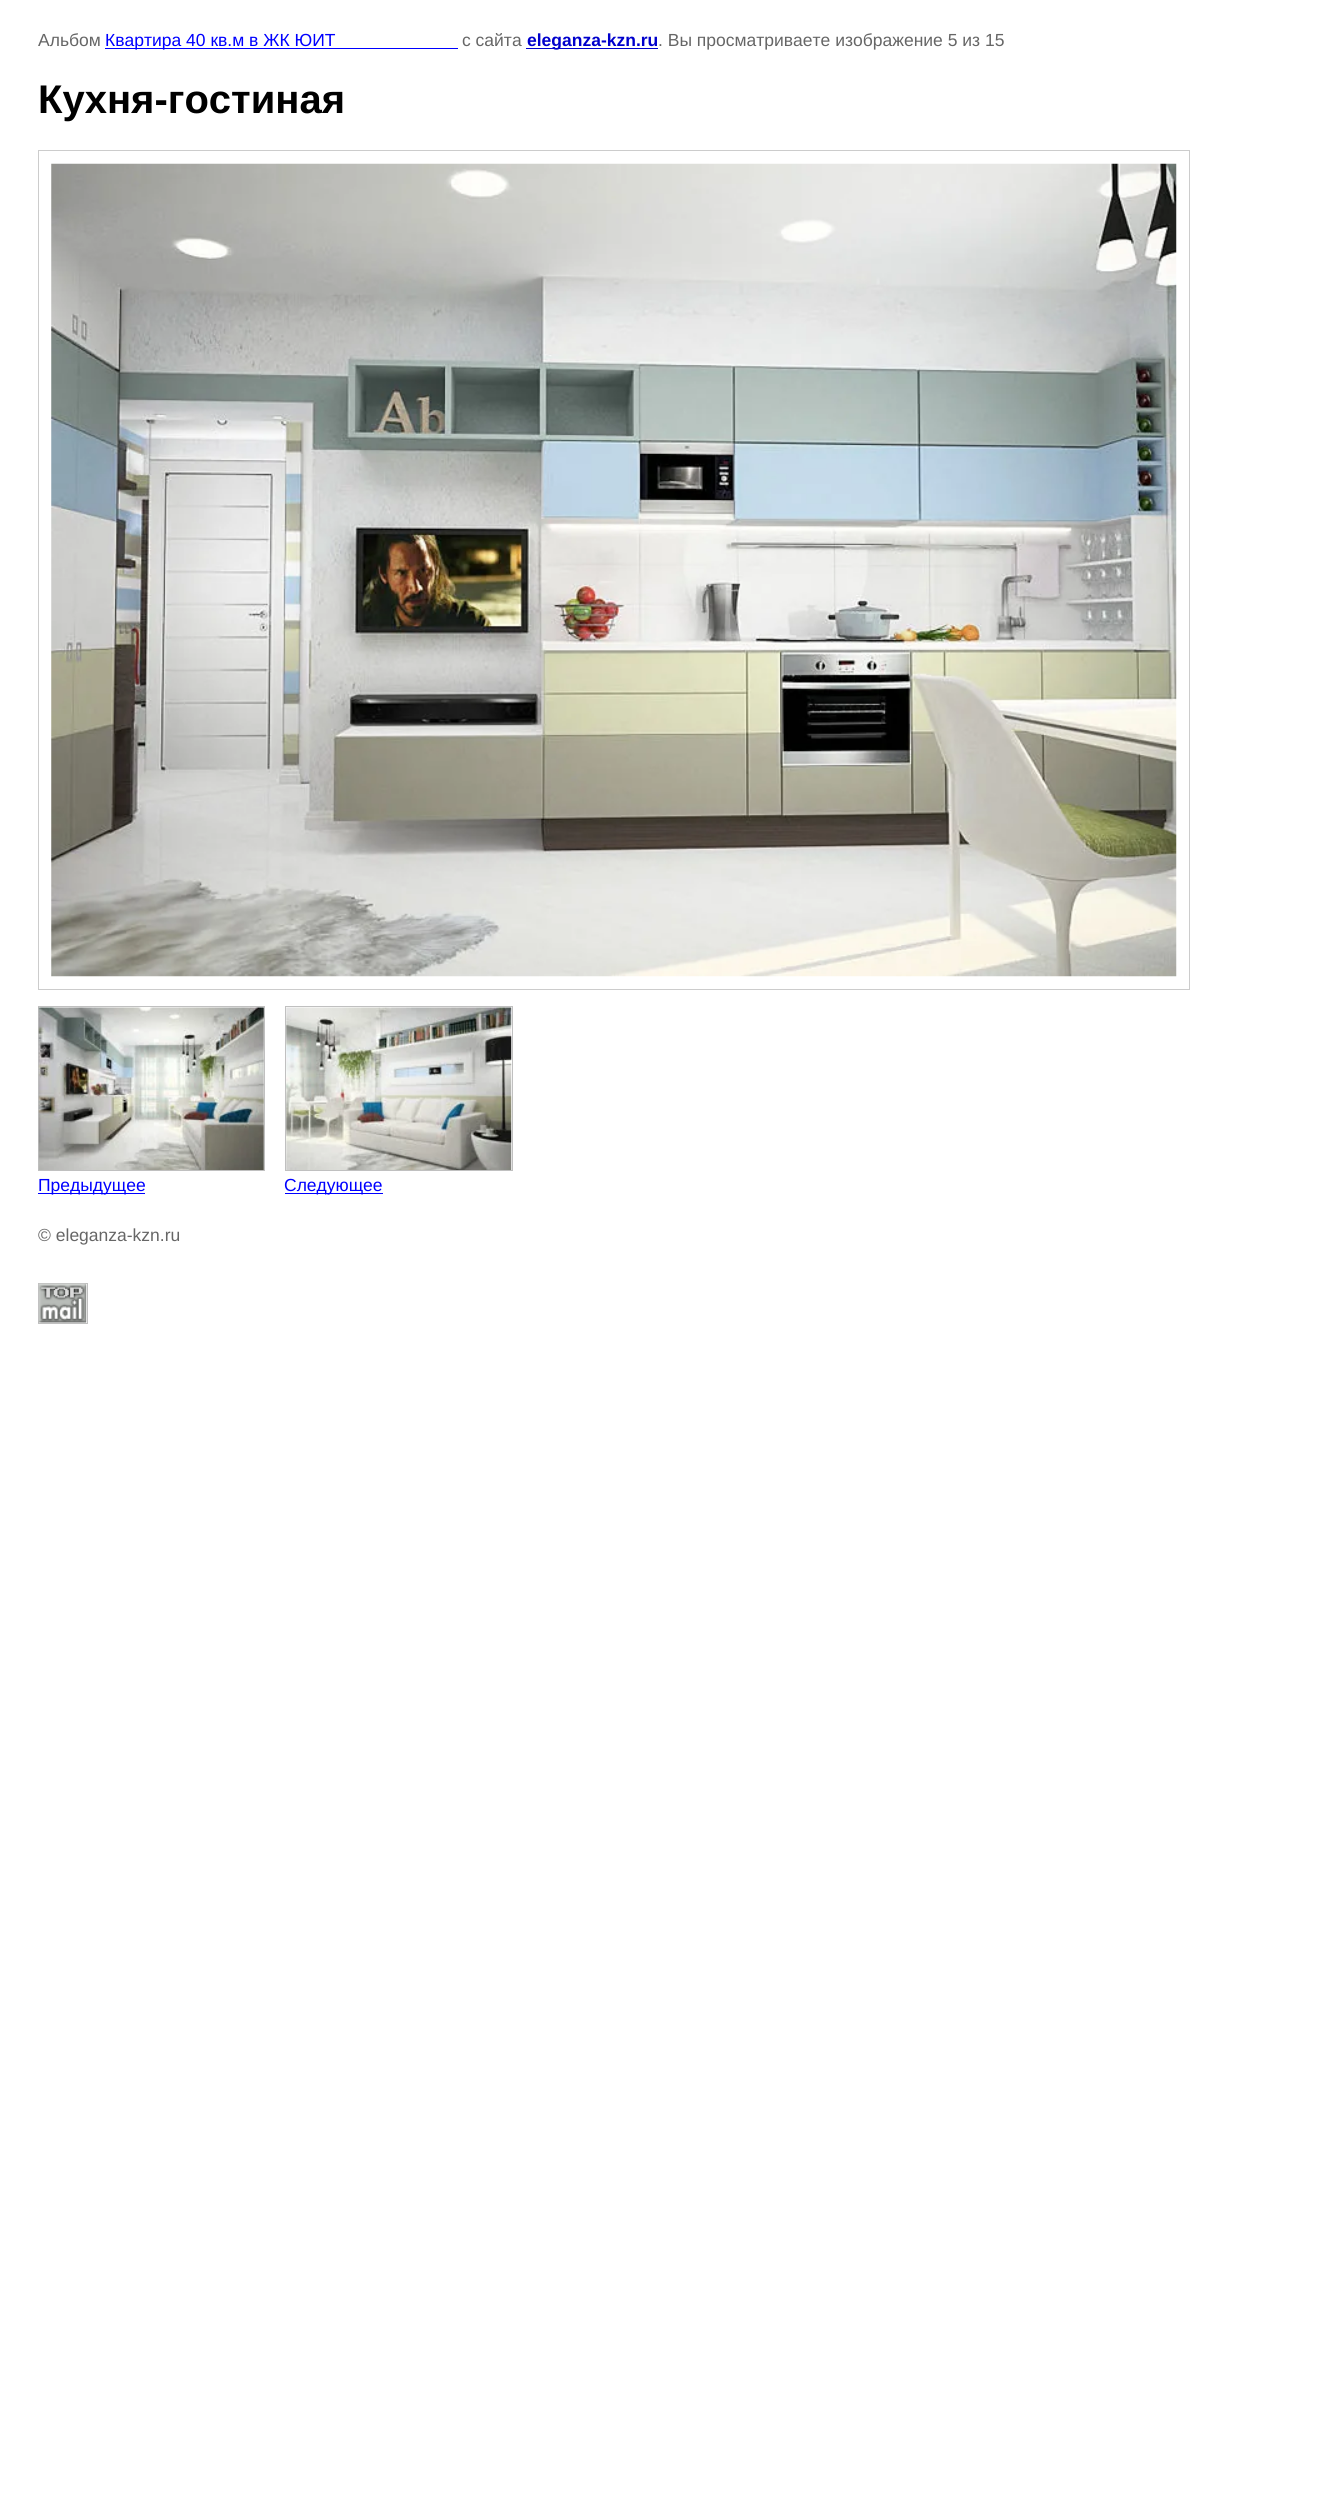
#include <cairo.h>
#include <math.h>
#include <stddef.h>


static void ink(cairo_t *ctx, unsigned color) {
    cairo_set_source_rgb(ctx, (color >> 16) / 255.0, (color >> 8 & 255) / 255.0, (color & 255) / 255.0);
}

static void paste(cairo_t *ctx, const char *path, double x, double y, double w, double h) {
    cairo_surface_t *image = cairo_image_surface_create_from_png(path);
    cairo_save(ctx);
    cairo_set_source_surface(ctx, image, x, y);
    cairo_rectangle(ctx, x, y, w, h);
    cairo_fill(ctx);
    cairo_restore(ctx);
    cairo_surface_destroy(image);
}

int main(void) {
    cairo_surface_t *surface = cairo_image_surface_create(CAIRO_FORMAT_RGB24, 1336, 2502);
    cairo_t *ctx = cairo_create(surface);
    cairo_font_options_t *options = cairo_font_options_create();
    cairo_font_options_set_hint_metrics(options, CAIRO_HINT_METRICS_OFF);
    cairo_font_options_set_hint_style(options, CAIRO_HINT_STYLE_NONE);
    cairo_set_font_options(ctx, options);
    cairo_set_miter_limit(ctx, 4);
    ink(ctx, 0xFFFFFF);
    cairo_paint(ctx);
    cairo_select_font_face(ctx, "Liberation Sans", CAIRO_FONT_SLANT_NORMAL, CAIRO_FONT_WEIGHT_NORMAL);
    cairo_set_font_size(ctx, 17.5);
    ink(ctx, 0x666666);
    cairo_move_to(ctx, 38, 46);
    cairo_show_text(ctx, "Альбом");
    ink(ctx, 0x0000FF);
    cairo_rectangle(ctx, 105, 48, 353, 1);
    cairo_fill(ctx);
    cairo_move_to(ctx, 105, 46);
    cairo_show_text(ctx, "Квартира 40 кв.м в ЖК ЮИТ");
    ink(ctx, 0x666666);
    cairo_move_to(ctx, 462, 46);
    cairo_show_text(ctx, "с сайта");
    ink(ctx, 0x0000CC);
    cairo_rectangle(ctx, 526, 48, 132, 1);
    cairo_fill(ctx);
    cairo_select_font_face(ctx, "Liberation Sans", CAIRO_FONT_SLANT_NORMAL, CAIRO_FONT_WEIGHT_BOLD);
    cairo_move_to(ctx, 527, 46);
    cairo_show_text(ctx, "eleganza-kzn.ru");
    cairo_select_font_face(ctx, "Liberation Sans", CAIRO_FONT_SLANT_NORMAL, CAIRO_FONT_WEIGHT_NORMAL);
    ink(ctx, 0x666666);
    cairo_move_to(ctx, 658, 46);
    cairo_show_text(ctx, ". Вы просматриваете изображение 5 из 15");
    cairo_select_font_face(ctx, "Liberation Sans", CAIRO_FONT_SLANT_NORMAL, CAIRO_FONT_WEIGHT_BOLD);
    cairo_set_font_size(ctx, 40);
    ink(ctx, 0x000000);
    cairo_move_to(ctx, 38, 113);
    cairo_show_text(ctx, "Кухня-гостиная");
    cairo_rectangle(ctx, 38.5, 150.5, 1151, 839);
    ink(ctx, 0xCCCCCC);
    cairo_set_line_width(ctx, 1);
    cairo_stroke(ctx);
    paste(ctx, "media/1.png", 51, 163, 1126, 814);
    cairo_rectangle(ctx, 38.5, 1006.5, 226, 164);
    ink(ctx, 0xC0C0C0);
    cairo_stroke(ctx);
    paste(ctx, "media/2.png", 38, 1007, 226, 163);
    ink(ctx, 0x0000FF);
    cairo_rectangle(ctx, 38, 1193, 107, 1);
    cairo_fill(ctx);
    cairo_select_font_face(ctx, "Liberation Sans", CAIRO_FONT_SLANT_NORMAL, CAIRO_FONT_WEIGHT_NORMAL);
    cairo_set_font_size(ctx, 17.5);
    cairo_move_to(ctx, 38, 1191);
    cairo_show_text(ctx, "Предыдущее");
    cairo_rectangle(ctx, 285.5, 1006.5, 227, 164);
    ink(ctx, 0xC0C0C0);
    cairo_stroke(ctx);
    paste(ctx, "media/3.png", 286, 1007, 226, 163);
    ink(ctx, 0x0000FF);
    cairo_rectangle(ctx, 285, 1193, 98, 1);
    cairo_fill(ctx);
    cairo_move_to(ctx, 284, 1191);
    cairo_show_text(ctx, "Следующее");
    ink(ctx, 0x666666);
    cairo_move_to(ctx, 38, 1241);
    cairo_show_text(ctx, "© eleganza-kzn.ru");
    cairo_rectangle(ctx, 38.5, 1283.5, 49, 40);
    ink(ctx, 0xC0C0C0);
    cairo_stroke(ctx);
    paste(ctx, "media/4.png", 38, 1283, 49, 40);
    cairo_surface_write_to_png(surface, "image.png");
    cairo_font_options_destroy(options);
    cairo_destroy(ctx);
    cairo_surface_destroy(surface);
    return 0;
}
